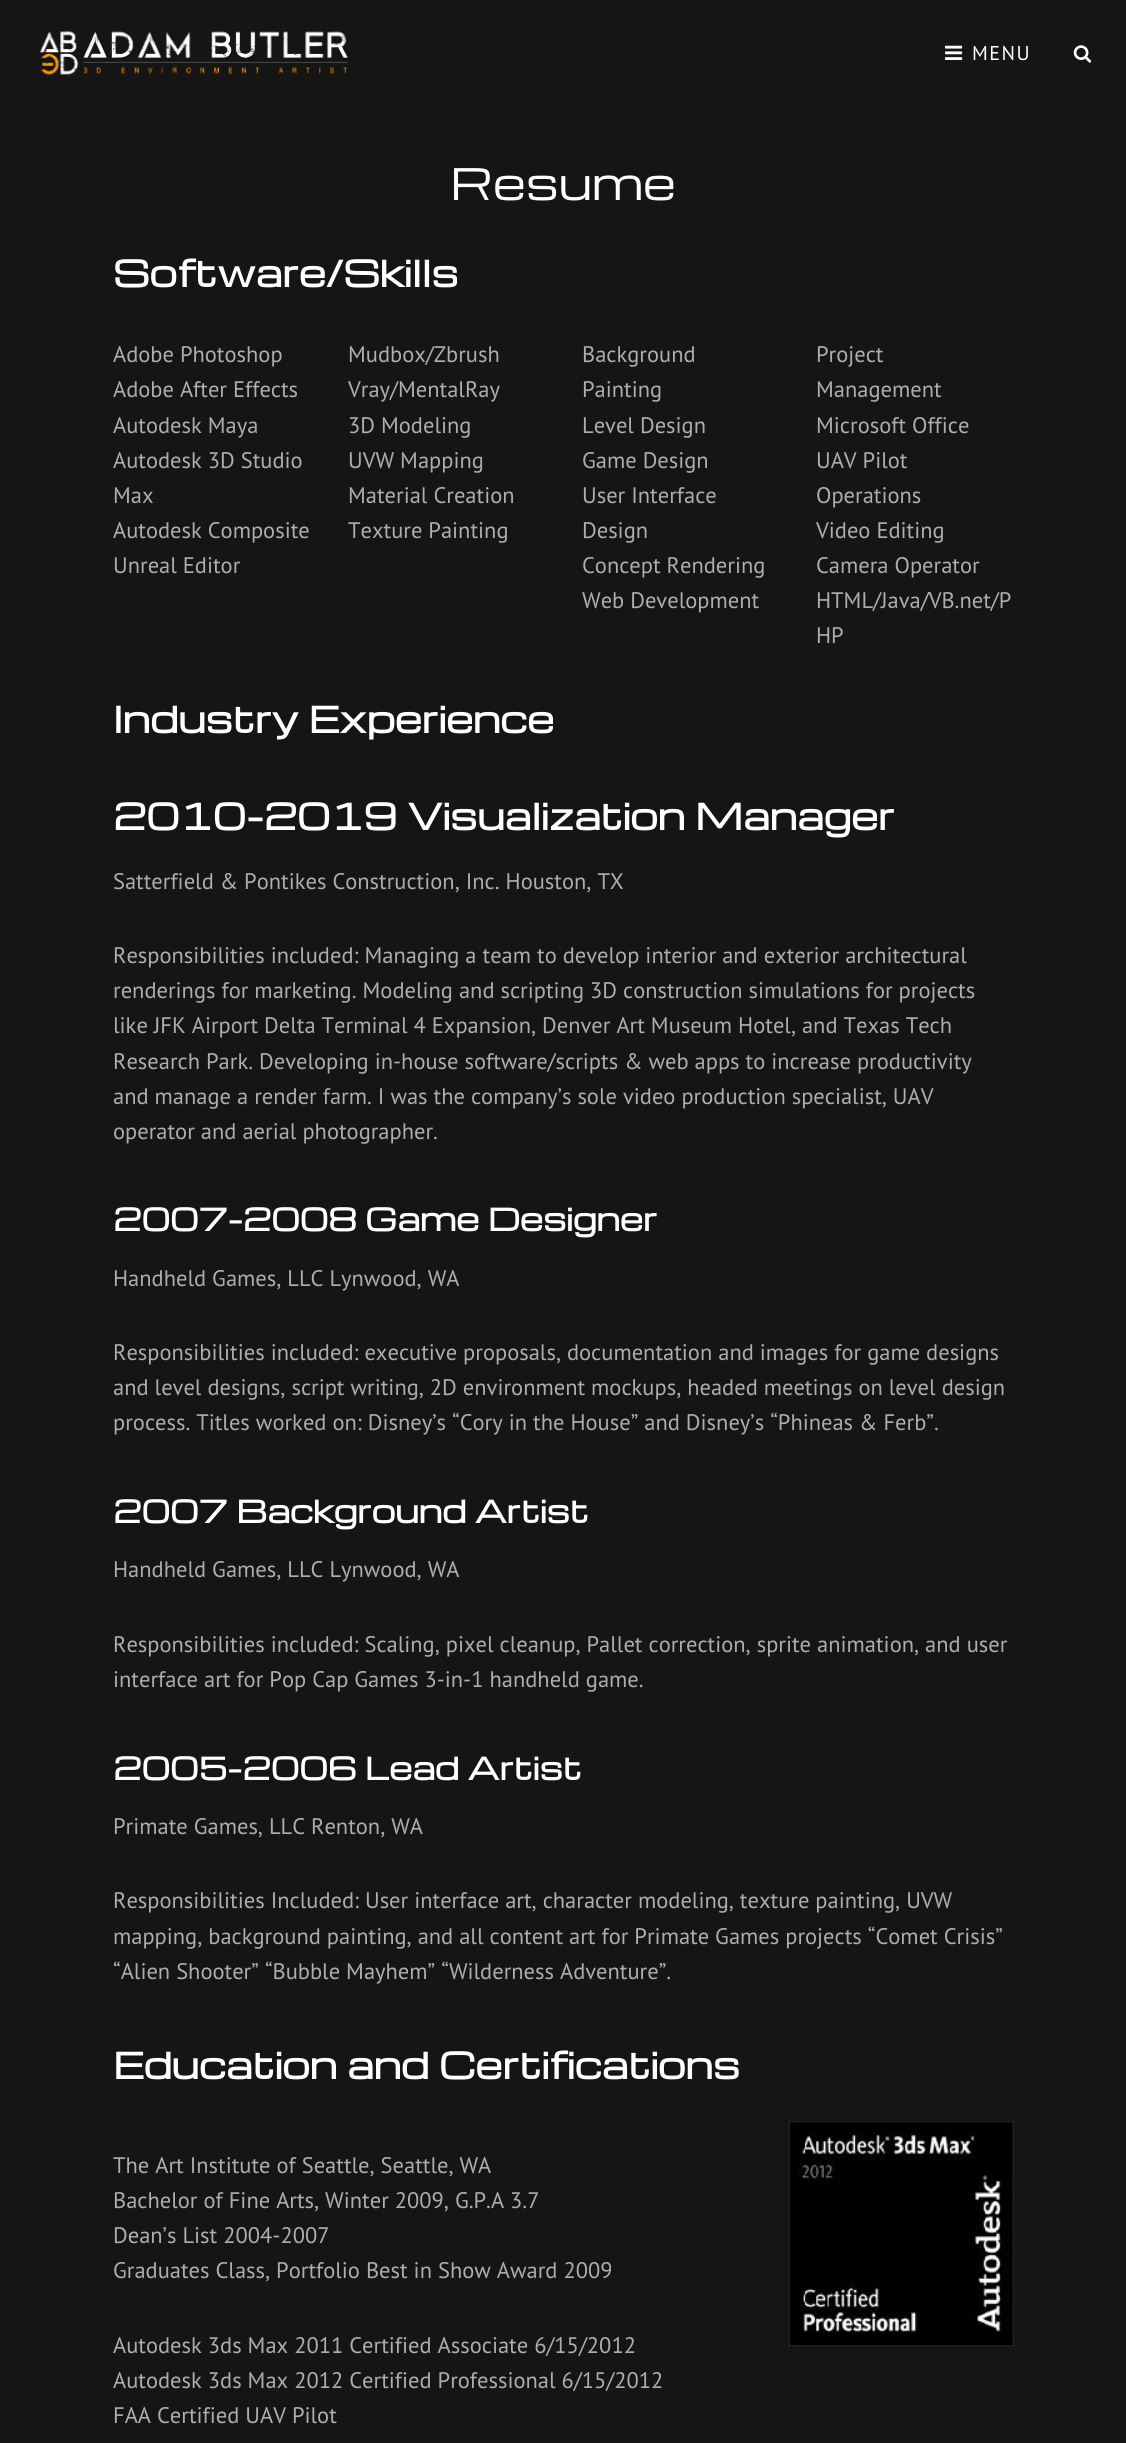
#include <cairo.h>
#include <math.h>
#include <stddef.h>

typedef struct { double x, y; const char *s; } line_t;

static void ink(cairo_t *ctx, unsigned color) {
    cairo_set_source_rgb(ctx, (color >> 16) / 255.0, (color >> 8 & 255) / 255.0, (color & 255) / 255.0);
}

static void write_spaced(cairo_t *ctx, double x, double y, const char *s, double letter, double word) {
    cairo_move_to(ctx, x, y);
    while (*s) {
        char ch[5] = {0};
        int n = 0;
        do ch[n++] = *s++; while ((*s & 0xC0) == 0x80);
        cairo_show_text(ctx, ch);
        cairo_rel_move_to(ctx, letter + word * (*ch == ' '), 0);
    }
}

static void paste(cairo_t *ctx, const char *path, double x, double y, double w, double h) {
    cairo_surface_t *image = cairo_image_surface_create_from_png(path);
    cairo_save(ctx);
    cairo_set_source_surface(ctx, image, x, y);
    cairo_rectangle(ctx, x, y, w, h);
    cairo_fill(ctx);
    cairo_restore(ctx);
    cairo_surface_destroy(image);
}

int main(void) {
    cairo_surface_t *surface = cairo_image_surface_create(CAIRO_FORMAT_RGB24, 1126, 2443);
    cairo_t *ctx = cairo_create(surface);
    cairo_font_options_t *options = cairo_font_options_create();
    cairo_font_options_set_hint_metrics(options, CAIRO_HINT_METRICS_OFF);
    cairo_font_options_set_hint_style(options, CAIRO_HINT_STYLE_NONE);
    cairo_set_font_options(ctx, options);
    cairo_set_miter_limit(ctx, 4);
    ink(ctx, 0x151515);
    cairo_paint(ctx);
    paste(ctx, "media/1.png", 39, 31, 309, 44);
    paste(ctx, "media/2.png", 945, 45, 18, 15);
    cairo_select_font_face(ctx, "PT Sans", CAIRO_FONT_SLANT_NORMAL, CAIRO_FONT_WEIGHT_NORMAL);
    cairo_set_font_size(ctx, 20);
    ink(ctx, 0xFFFFFF);
    write_spaced(ctx, 972, 60, "MENU", 1.5, 0);
    paste(ctx, "media/3.png", 1073, 45, 19, 18);
    cairo_select_font_face(ctx, "Michroma", CAIRO_FONT_SLANT_NORMAL, CAIRO_FONT_WEIGHT_NORMAL);
    cairo_set_font_size(ctx, 42.5);
    cairo_move_to(ctx, 450, 200);
    cairo_show_text(ctx, "Resume");
    cairo_select_font_face(ctx, "Michroma", CAIRO_FONT_SLANT_NORMAL, CAIRO_FONT_WEIGHT_BOLD);
    cairo_set_font_size(ctx, 35);
    cairo_move_to(ctx, 113, 287);
    cairo_show_text(ctx, "Software/Skills");
    cairo_select_font_face(ctx, "PT Sans", CAIRO_FONT_SLANT_NORMAL, CAIRO_FONT_WEIGHT_NORMAL);
    cairo_set_font_size(ctx, 22.5);
    ink(ctx, 0xAEAEAE);
    {
        static const line_t items[] = {
            {113, 362, "Adobe Photoshop"},
            {113, 397, "Adobe After Effects"},
            {113, 433, "Autodesk Maya"},
            {113, 468, "Autodesk 3D Studio"},
            {113, 503, "Max"},
            {113, 538, "Autodesk Composite"},
            {113, 573, "Unreal Editor"},
            {348, 362, "Mudbox/Zbrush"},
            {348, 397, "Vray/MentalRay"},
            {348, 433, "3D Modeling"},
            {348, 468, "UVW Mapping"},
            {348, 503, "Material Creation"},
            {348, 538, "Texture Painting"},
            {582, 362, "Background"},
            {582, 397, "Painting"},
            {582, 433, "Level Design"},
            {582, 468, "Game Design"},
            {582, 503, "User Interface"},
            {582, 538, "Design"},
            {582, 573, "Concept Rendering"},
            {582, 608, "Web Development"},
            {816, 362, "Project"},
            {816, 397, "Management"},
            {816, 433, "Microsoft Office"},
            {816, 468, "UAV Pilot"},
            {816, 503, "Operations"},
            {816, 538, "Video Editing"},
            {816, 573, "Camera Operator"},
            {816, 608, "HTML/Java/VB.net/P"},
            {816, 643, "HP"},
        };
        for (size_t i = 0; i < sizeof items / sizeof *items; i++) {
            cairo_move_to(ctx, items[i].x, items[i].y);
            cairo_show_text(ctx, items[i].s);
        }
    }
    cairo_select_font_face(ctx, "Michroma", CAIRO_FONT_SLANT_NORMAL, CAIRO_FONT_WEIGHT_BOLD);
    cairo_set_font_size(ctx, 35);
    ink(ctx, 0xFFFFFF);
    cairo_move_to(ctx, 113, 733);
    cairo_show_text(ctx, "Industry Experience");
    cairo_move_to(ctx, 113, 830);
    cairo_show_text(ctx, "2010-2019 Visualization Manager");
    cairo_select_font_face(ctx, "PT Sans", CAIRO_FONT_SLANT_NORMAL, CAIRO_FONT_WEIGHT_NORMAL);
    cairo_set_font_size(ctx, 22.5);
    ink(ctx, 0xAEAEAE);
    {
        static const line_t items[] = {
            {113, 889, "Satterfield & Pontikes Construction, Inc. Houston, TX"},
            {113, 963, "Responsibilities included: Managing a team to develop interior and exterior architectural"},
            {113, 998, "renderings for marketing. Modeling and scripting 3D construction simulations for projects"},
            {113, 1033, "like JFK Airport Delta Terminal 4 Expansion, Denver Art Museum Hotel, and Texas Tech"},
            {113, 1069, "Research Park. Developing in-house software/scripts & web apps to increase productivity"},
            {113, 1104, "and manage a render farm. I was the company’s sole video production specialist, UAV"},
            {113, 1139, "operator and aerial photographer."},
        };
        for (size_t i = 0; i < sizeof items / sizeof *items; i++) {
            cairo_move_to(ctx, items[i].x, items[i].y);
            cairo_show_text(ctx, items[i].s);
        }
    }
    cairo_select_font_face(ctx, "Michroma", CAIRO_FONT_SLANT_NORMAL, CAIRO_FONT_WEIGHT_BOLD);
    cairo_set_font_size(ctx, 30);
    ink(ctx, 0xFFFFFF);
    cairo_move_to(ctx, 113, 1231);
    cairo_show_text(ctx, "2007-2008 Game Designer");
    cairo_select_font_face(ctx, "PT Sans", CAIRO_FONT_SLANT_NORMAL, CAIRO_FONT_WEIGHT_NORMAL);
    cairo_set_font_size(ctx, 22.5);
    ink(ctx, 0xAEAEAE);
    {
        static const line_t items[] = {
            {113, 1286, "Handheld Games, LLC Lynwood, WA"},
            {113, 1360, "Responsibilities included: executive proposals, documentation and images for game designs"},
            {113, 1395, "and level designs, script writing, 2D environment mockups, headed meetings on level design"},
            {113, 1430, "process. Titles worked on: Disney’s “Cory in the House” and Disney’s “Phineas & Ferb”."},
        };
        for (size_t i = 0; i < sizeof items / sizeof *items; i++) {
            cairo_move_to(ctx, items[i].x, items[i].y);
            cairo_show_text(ctx, items[i].s);
        }
    }
    cairo_select_font_face(ctx, "Michroma", CAIRO_FONT_SLANT_NORMAL, CAIRO_FONT_WEIGHT_BOLD);
    cairo_set_font_size(ctx, 30);
    ink(ctx, 0xFFFFFF);
    cairo_move_to(ctx, 113, 1523);
    cairo_show_text(ctx, "2007 Background Artist");
    cairo_select_font_face(ctx, "PT Sans", CAIRO_FONT_SLANT_NORMAL, CAIRO_FONT_WEIGHT_NORMAL);
    cairo_set_font_size(ctx, 22.5);
    ink(ctx, 0xAEAEAE);
    {
        static const line_t items[] = {
            {113, 1577, "Handheld Games, LLC Lynwood, WA"},
            {113, 1652, "Responsibilities included: Scaling, pixel cleanup, Pallet correction, sprite animation, and user"},
            {113, 1687, "interface art for Pop Cap Games 3-in-1 handheld game."},
        };
        for (size_t i = 0; i < sizeof items / sizeof *items; i++) {
            cairo_move_to(ctx, items[i].x, items[i].y);
            cairo_show_text(ctx, items[i].s);
        }
    }
    cairo_select_font_face(ctx, "Michroma", CAIRO_FONT_SLANT_NORMAL, CAIRO_FONT_WEIGHT_BOLD);
    cairo_set_font_size(ctx, 30);
    ink(ctx, 0xFFFFFF);
    cairo_move_to(ctx, 113, 1780);
    cairo_show_text(ctx, "2005-2006 Lead Artist");
    cairo_select_font_face(ctx, "PT Sans", CAIRO_FONT_SLANT_NORMAL, CAIRO_FONT_WEIGHT_NORMAL);
    cairo_set_font_size(ctx, 22.5);
    ink(ctx, 0xAEAEAE);
    {
        static const line_t items[] = {
            {113, 1834, "Primate Games, LLC Renton, WA"},
            {113, 1908, "Responsibilities Included: User interface art, character modeling, texture painting, UVW"},
            {113, 1944, "mapping, background painting, and all content art for Primate Games projects “Comet Crisis”"},
            {113, 1979, "“Alien Shooter” “Bubble Mayhem” “Wilderness Adventure”."},
        };
        for (size_t i = 0; i < sizeof items / sizeof *items; i++) {
            cairo_move_to(ctx, items[i].x, items[i].y);
            cairo_show_text(ctx, items[i].s);
        }
    }
    cairo_select_font_face(ctx, "Michroma", CAIRO_FONT_SLANT_NORMAL, CAIRO_FONT_WEIGHT_BOLD);
    cairo_set_font_size(ctx, 35);
    ink(ctx, 0xFFFFFF);
    cairo_move_to(ctx, 113, 2079);
    cairo_show_text(ctx, "Education and Certifications");
    cairo_select_font_face(ctx, "PT Sans", CAIRO_FONT_SLANT_NORMAL, CAIRO_FONT_WEIGHT_NORMAL);
    cairo_set_font_size(ctx, 22.5);
    ink(ctx, 0xAEAEAE);
    cairo_move_to(ctx, 113, 2173);
    cairo_show_text(ctx, "The Art Institute of Seattle, Seattle, WA");
    paste(ctx, "media/4.png", 788, 2121, 226, 226);
    {
        static const line_t items[] = {
            {113, 2208, "Bachelor of Fine Arts, Winter 2009, G.P.A 3.7"},
            {113, 2243, "Dean’s List 2004-2007"},
            {113, 2278, "Graduates Class, Portfolio Best in Show Award 2009"},
            {113, 2353, "Autodesk 3ds Max 2011 Certified Associate 6/15/2012"},
            {113, 2388, "Autodesk 3ds Max 2012 Certified Professional 6/15/2012"},
            {113, 2423, "FAA Certified UAV Pilot"},
        };
        for (size_t i = 0; i < sizeof items / sizeof *items; i++) {
            cairo_move_to(ctx, items[i].x, items[i].y);
            cairo_show_text(ctx, items[i].s);
        }
    }
    cairo_surface_write_to_png(surface, "image.png");
    cairo_font_options_destroy(options);
    cairo_destroy(ctx);
    cairo_surface_destroy(surface);
    return 0;
}
